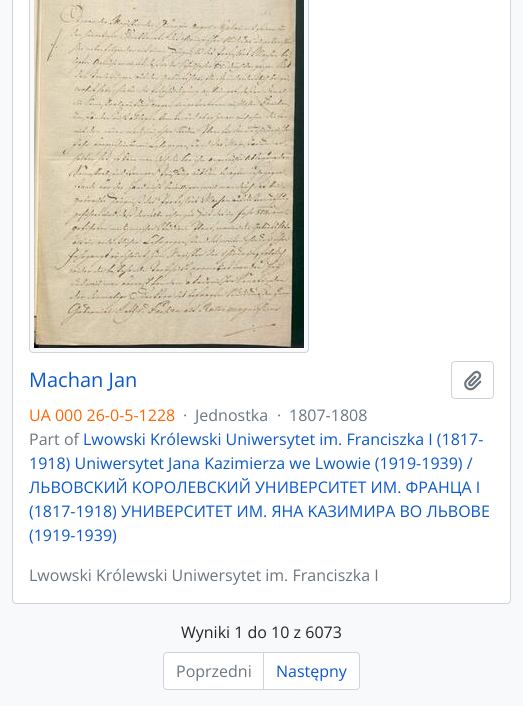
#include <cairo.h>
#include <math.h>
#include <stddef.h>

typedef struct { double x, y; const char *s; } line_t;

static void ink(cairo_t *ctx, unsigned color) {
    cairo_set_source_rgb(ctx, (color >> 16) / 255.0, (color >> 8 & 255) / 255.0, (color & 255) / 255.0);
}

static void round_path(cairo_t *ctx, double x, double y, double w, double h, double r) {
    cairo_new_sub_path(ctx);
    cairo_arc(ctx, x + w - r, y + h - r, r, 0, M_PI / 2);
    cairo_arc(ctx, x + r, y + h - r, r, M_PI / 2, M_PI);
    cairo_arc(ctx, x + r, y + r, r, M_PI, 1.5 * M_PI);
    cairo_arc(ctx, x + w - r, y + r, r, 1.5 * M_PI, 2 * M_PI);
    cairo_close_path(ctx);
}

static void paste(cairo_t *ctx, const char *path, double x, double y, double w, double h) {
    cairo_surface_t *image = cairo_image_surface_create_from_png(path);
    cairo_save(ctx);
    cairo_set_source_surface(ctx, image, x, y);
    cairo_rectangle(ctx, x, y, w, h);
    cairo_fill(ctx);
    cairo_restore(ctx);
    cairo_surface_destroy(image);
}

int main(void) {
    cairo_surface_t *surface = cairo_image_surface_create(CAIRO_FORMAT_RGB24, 523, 706);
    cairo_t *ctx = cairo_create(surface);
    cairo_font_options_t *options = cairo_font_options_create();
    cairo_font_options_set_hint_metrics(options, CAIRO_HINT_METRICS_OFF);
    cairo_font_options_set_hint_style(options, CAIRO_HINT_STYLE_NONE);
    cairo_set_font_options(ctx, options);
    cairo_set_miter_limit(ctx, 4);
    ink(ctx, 0xF8F9FA);
    cairo_paint(ctx);
    ink(ctx, 0xFFFFFF);
    round_path(ctx, 12.5, -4.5, 498, 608, 3.5);
    cairo_fill_preserve(ctx);
    ink(ctx, 0xCED4DA);
    cairo_set_line_width(ctx, 1);
    cairo_stroke(ctx);
    ink(ctx, 0xF8F9FA);
    round_path(ctx, 29.5, -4.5, 279, 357, 3.5);
    cairo_fill_preserve(ctx);
    ink(ctx, 0xCED4DA);
    cairo_stroke(ctx);
    paste(ctx, "media/1.png", 34, 0, 270, 348);
    cairo_select_font_face(ctx, "Open Sans", CAIRO_FONT_SLANT_NORMAL, CAIRO_FONT_WEIGHT_NORMAL);
    cairo_set_font_size(ctx, 20);
    ink(ctx, 0x0A58CA);
    cairo_move_to(ctx, 29, 387);
    cairo_show_text(ctx, "Machan Jan");
    round_path(ctx, 451.5, 361.5, 42, 37, 3.5);
    ink(ctx, 0xCED4DA);
    cairo_stroke(ctx);
    paste(ctx, "media/2.png", 464, 370, 18, 21);
    cairo_set_font_size(ctx, 16);
    ink(ctx, 0xFF6600);
    cairo_move_to(ctx, 29, 421);
    cairo_show_text(ctx, "UA 000 26-0-5-1228");
    ink(ctx, 0x6C757D);
    {
        static const line_t items[] = {
            {183, 421, "·"},
            {195, 421, "Jednostka"},
            {277, 421, "·"},
            {289, 421, "1807-1808"},
            {29, 445, "Part of"},
        };
        for (size_t i = 0; i < sizeof items / sizeof *items; i++) {
            cairo_move_to(ctx, items[i].x, items[i].y);
            cairo_show_text(ctx, items[i].s);
        }
    }
    ink(ctx, 0x0A58CA);
    {
        static const line_t items[] = {
            {83, 445, "Lwowski Królewski Uniwersytet im. Franciszka I (1817-"},
            {29, 469, "1918) Uniwersytet Jana Kazimierza we Lwowie (1919-1939) /"},
            {29, 493, "ЛЬBOBCKИЙ KOPOЛEBCKИЙ УНИBEPCИTET ИМ. ФPAНЦA I"},
            {29, 517, "(1817-1918) УНИBEPCИTET ИМ. ЯНA KAЗИМИPA ВO ЛЬBOBE"},
            {29, 541, "(1919-1939)"},
        };
        for (size_t i = 0; i < sizeof items / sizeof *items; i++) {
            cairo_move_to(ctx, items[i].x, items[i].y);
            cairo_show_text(ctx, items[i].s);
        }
    }
    ink(ctx, 0x6C757D);
    cairo_move_to(ctx, 29, 581);
    cairo_show_text(ctx, "Lwowski Królewski Uniwersytet im. Franciszka I");
    ink(ctx, 0x212529);
    cairo_move_to(ctx, 181, 638);
    cairo_show_text(ctx, "Wyniki 1 do 10 z 6073");
    ink(ctx, 0xFFFFFF);
    cairo_new_path(ctx);
    cairo_move_to(ctx, 167, 652.5);
    cairo_line_to(ctx, 263.5, 652.5);
    cairo_line_to(ctx, 263.5, 689.5);
    cairo_line_to(ctx, 167, 689.5);
    cairo_curve_to(ctx, 165, 689.5, 163.5, 688, 163.5, 686);
    cairo_line_to(ctx, 163.5, 656);
    cairo_curve_to(ctx, 163.5, 654, 165, 652.5, 167, 652.5);
    cairo_close_path(ctx);
    cairo_fill_preserve(ctx);
    ink(ctx, 0xCED4DA);
    cairo_stroke(ctx);
    ink(ctx, 0x6C757D);
    cairo_move_to(ctx, 176, 677);
    cairo_show_text(ctx, "Poprzedni");
    ink(ctx, 0xFFFFFF);
    cairo_new_path(ctx);
    cairo_move_to(ctx, 263.5, 652.5);
    cairo_line_to(ctx, 356, 652.5);
    cairo_curve_to(ctx, 358, 652.5, 359.5, 654, 359.5, 656);
    cairo_line_to(ctx, 359.5, 686);
    cairo_curve_to(ctx, 359.5, 688, 358, 689.5, 356, 689.5);
    cairo_line_to(ctx, 263.5, 689.5);
    cairo_close_path(ctx);
    cairo_fill_preserve(ctx);
    ink(ctx, 0xCED4DA);
    cairo_stroke(ctx);
    ink(ctx, 0x0A58CA);
    cairo_move_to(ctx, 276, 677);
    cairo_show_text(ctx, "Następny");
    cairo_surface_write_to_png(surface, "image.png");
    cairo_font_options_destroy(options);
    cairo_destroy(ctx);
    cairo_surface_destroy(surface);
    return 0;
}
